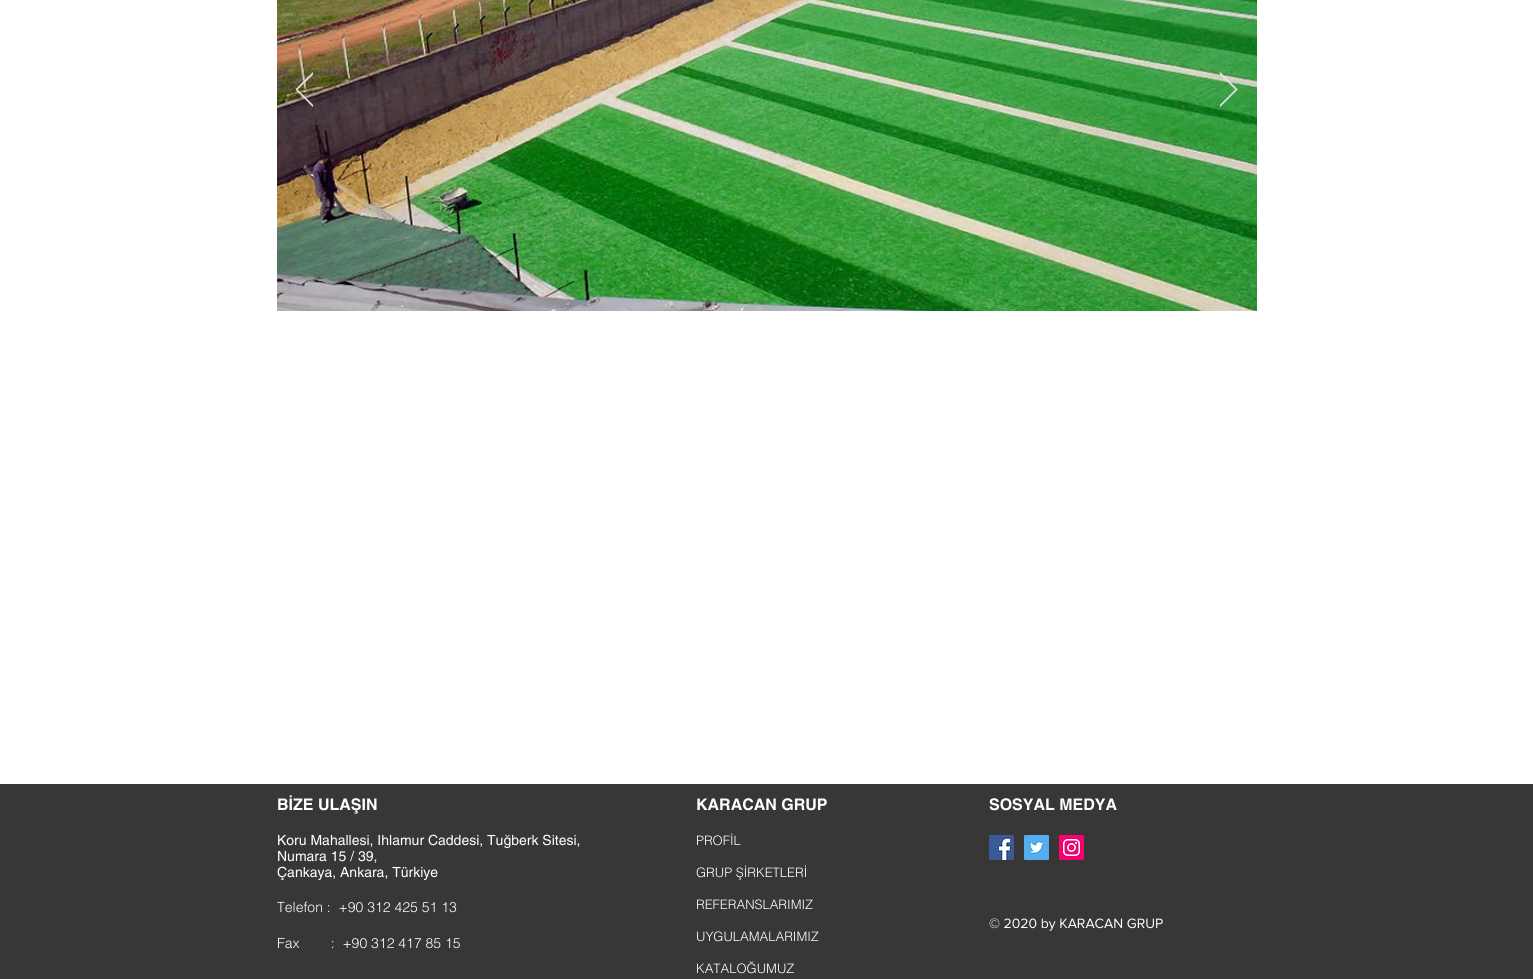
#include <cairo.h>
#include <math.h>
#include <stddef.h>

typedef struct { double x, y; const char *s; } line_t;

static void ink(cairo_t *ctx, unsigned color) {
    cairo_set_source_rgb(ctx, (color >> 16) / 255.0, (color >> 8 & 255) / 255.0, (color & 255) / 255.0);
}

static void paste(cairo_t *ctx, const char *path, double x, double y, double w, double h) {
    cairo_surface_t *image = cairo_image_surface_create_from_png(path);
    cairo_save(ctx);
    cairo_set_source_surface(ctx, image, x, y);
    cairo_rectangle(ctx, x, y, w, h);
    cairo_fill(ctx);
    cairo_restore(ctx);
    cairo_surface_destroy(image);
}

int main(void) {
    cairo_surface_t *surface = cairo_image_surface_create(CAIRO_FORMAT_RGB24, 1533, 979);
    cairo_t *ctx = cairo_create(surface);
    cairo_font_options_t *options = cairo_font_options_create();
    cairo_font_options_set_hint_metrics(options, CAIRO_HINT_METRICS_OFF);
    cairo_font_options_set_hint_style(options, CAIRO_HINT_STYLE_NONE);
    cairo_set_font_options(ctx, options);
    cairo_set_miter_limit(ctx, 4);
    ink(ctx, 0xFFFFFF);
    cairo_paint(ctx);
    paste(ctx, "media/1.png", 277, 0, 980, 311);
    cairo_save(ctx);
    cairo_rectangle(ctx, 296, 72, 17, 35);
    cairo_clip(ctx);
    cairo_new_path(ctx);
    cairo_move_to(ctx, 313.5, 107);
    cairo_line_to(ctx, 296, 89.5);
    cairo_line_to(ctx, 313.5, 72);
    cairo_line_to(ctx, 314, 73);
    cairo_line_to(ctx, 297, 89.5);
    cairo_line_to(ctx, 314, 106.5);
    cairo_close_path(ctx);
    ink(ctx, 0xE8E6E6);
    cairo_set_line_width(ctx, 0.9);
    cairo_stroke(ctx);
    cairo_restore(ctx);
    cairo_save(ctx);
    cairo_rectangle(ctx, 1220, 72, 18, 35);
    cairo_clip(ctx);
    cairo_new_path(ctx);
    cairo_move_to(ctx, 1219.5, 107);
    cairo_line_to(ctx, 1237, 89.5);
    cairo_line_to(ctx, 1219.5, 72);
    cairo_line_to(ctx, 1219, 73);
    cairo_line_to(ctx, 1236, 89.5);
    cairo_line_to(ctx, 1219, 106.5);
    cairo_close_path(ctx);
    ink(ctx, 0xE8E6E6);
    cairo_set_line_width(ctx, 0.9);
    cairo_stroke(ctx);
    cairo_restore(ctx);
    ink(ctx, 0x373737);
    cairo_rectangle(ctx, 0, 784, 1533, 195);
    cairo_fill(ctx);
    cairo_select_font_face(ctx, "helvetica", CAIRO_FONT_SLANT_NORMAL, CAIRO_FONT_WEIGHT_BOLD);
    cairo_set_font_size(ctx, 16);
    ink(ctx, 0xFFFFFF);
    cairo_move_to(ctx, 277, 810);
    cairo_show_text(ctx, "BİZE ULAŞIN");
    cairo_select_font_face(ctx, "helvetica", CAIRO_FONT_SLANT_NORMAL, CAIRO_FONT_WEIGHT_NORMAL);
    cairo_set_font_size(ctx, 14);
    {
        static const line_t items[] = {
            {277, 845, "Koru Mahallesi, Ihlamur Caddesi, Tuğberk Sitesi,"},
            {277, 861, "Numara 15 / 39,"},
            {277, 877, "Çankaya, Ankara, Türkiye"},
        };
        for (size_t i = 0; i < sizeof items / sizeof *items; i++) {
            cairo_move_to(ctx, items[i].x, items[i].y);
            cairo_show_text(ctx, items[i].s);
        }
    }
    cairo_select_font_face(ctx, "helvetica Light", CAIRO_FONT_SLANT_NORMAL, CAIRO_FONT_WEIGHT_NORMAL);
    cairo_move_to(ctx, 277, 912);
    cairo_show_text(ctx, "Telefon :  +90 312 425 51 13");
    cairo_move_to(ctx, 277, 948);
    cairo_show_text(ctx, "Fax        :  +90 312 417 85 15");
    cairo_select_font_face(ctx, "helvetica", CAIRO_FONT_SLANT_NORMAL, CAIRO_FONT_WEIGHT_BOLD);
    cairo_set_font_size(ctx, 16);
    cairo_move_to(ctx, 696, 810);
    cairo_show_text(ctx, "KARACAN GRUP");
    cairo_select_font_face(ctx, "helvetica Light", CAIRO_FONT_SLANT_NORMAL, CAIRO_FONT_WEIGHT_NORMAL);
    cairo_set_font_size(ctx, 13);
    {
        static const line_t items[] = {
            {696, 845, "PROFİL"},
            {696, 877, "GRUP ŞİRKETLERİ"},
            {696, 909, "REFERANSLARIMIZ"},
            {696, 941, "UYGULAMALARIMIZ"},
            {696, 973, "KATALOĞUMUZ"},
        };
        for (size_t i = 0; i < sizeof items / sizeof *items; i++) {
            cairo_move_to(ctx, items[i].x, items[i].y);
            cairo_show_text(ctx, items[i].s);
        }
    }
    cairo_select_font_face(ctx, "helvetica", CAIRO_FONT_SLANT_NORMAL, CAIRO_FONT_WEIGHT_BOLD);
    cairo_set_font_size(ctx, 16);
    cairo_move_to(ctx, 989, 810);
    cairo_show_text(ctx, "SOSYAL MEDYA");
    paste(ctx, "media/2.png", 989, 835, 25, 25);
    paste(ctx, "media/3.png", 1024, 835, 25, 25);
    paste(ctx, "media/4.png", 1059, 835, 25, 25);
    cairo_select_font_face(ctx, "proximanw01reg", CAIRO_FONT_SLANT_NORMAL, CAIRO_FONT_WEIGHT_NORMAL);
    cairo_set_font_size(ctx, 14);
    cairo_move_to(ctx, 989, 928);
    cairo_show_text(ctx, "© 2020 by KARACAN GRUP");
    cairo_surface_write_to_png(surface, "image.png");
    cairo_font_options_destroy(options);
    cairo_destroy(ctx);
    cairo_surface_destroy(surface);
    return 0;
}
